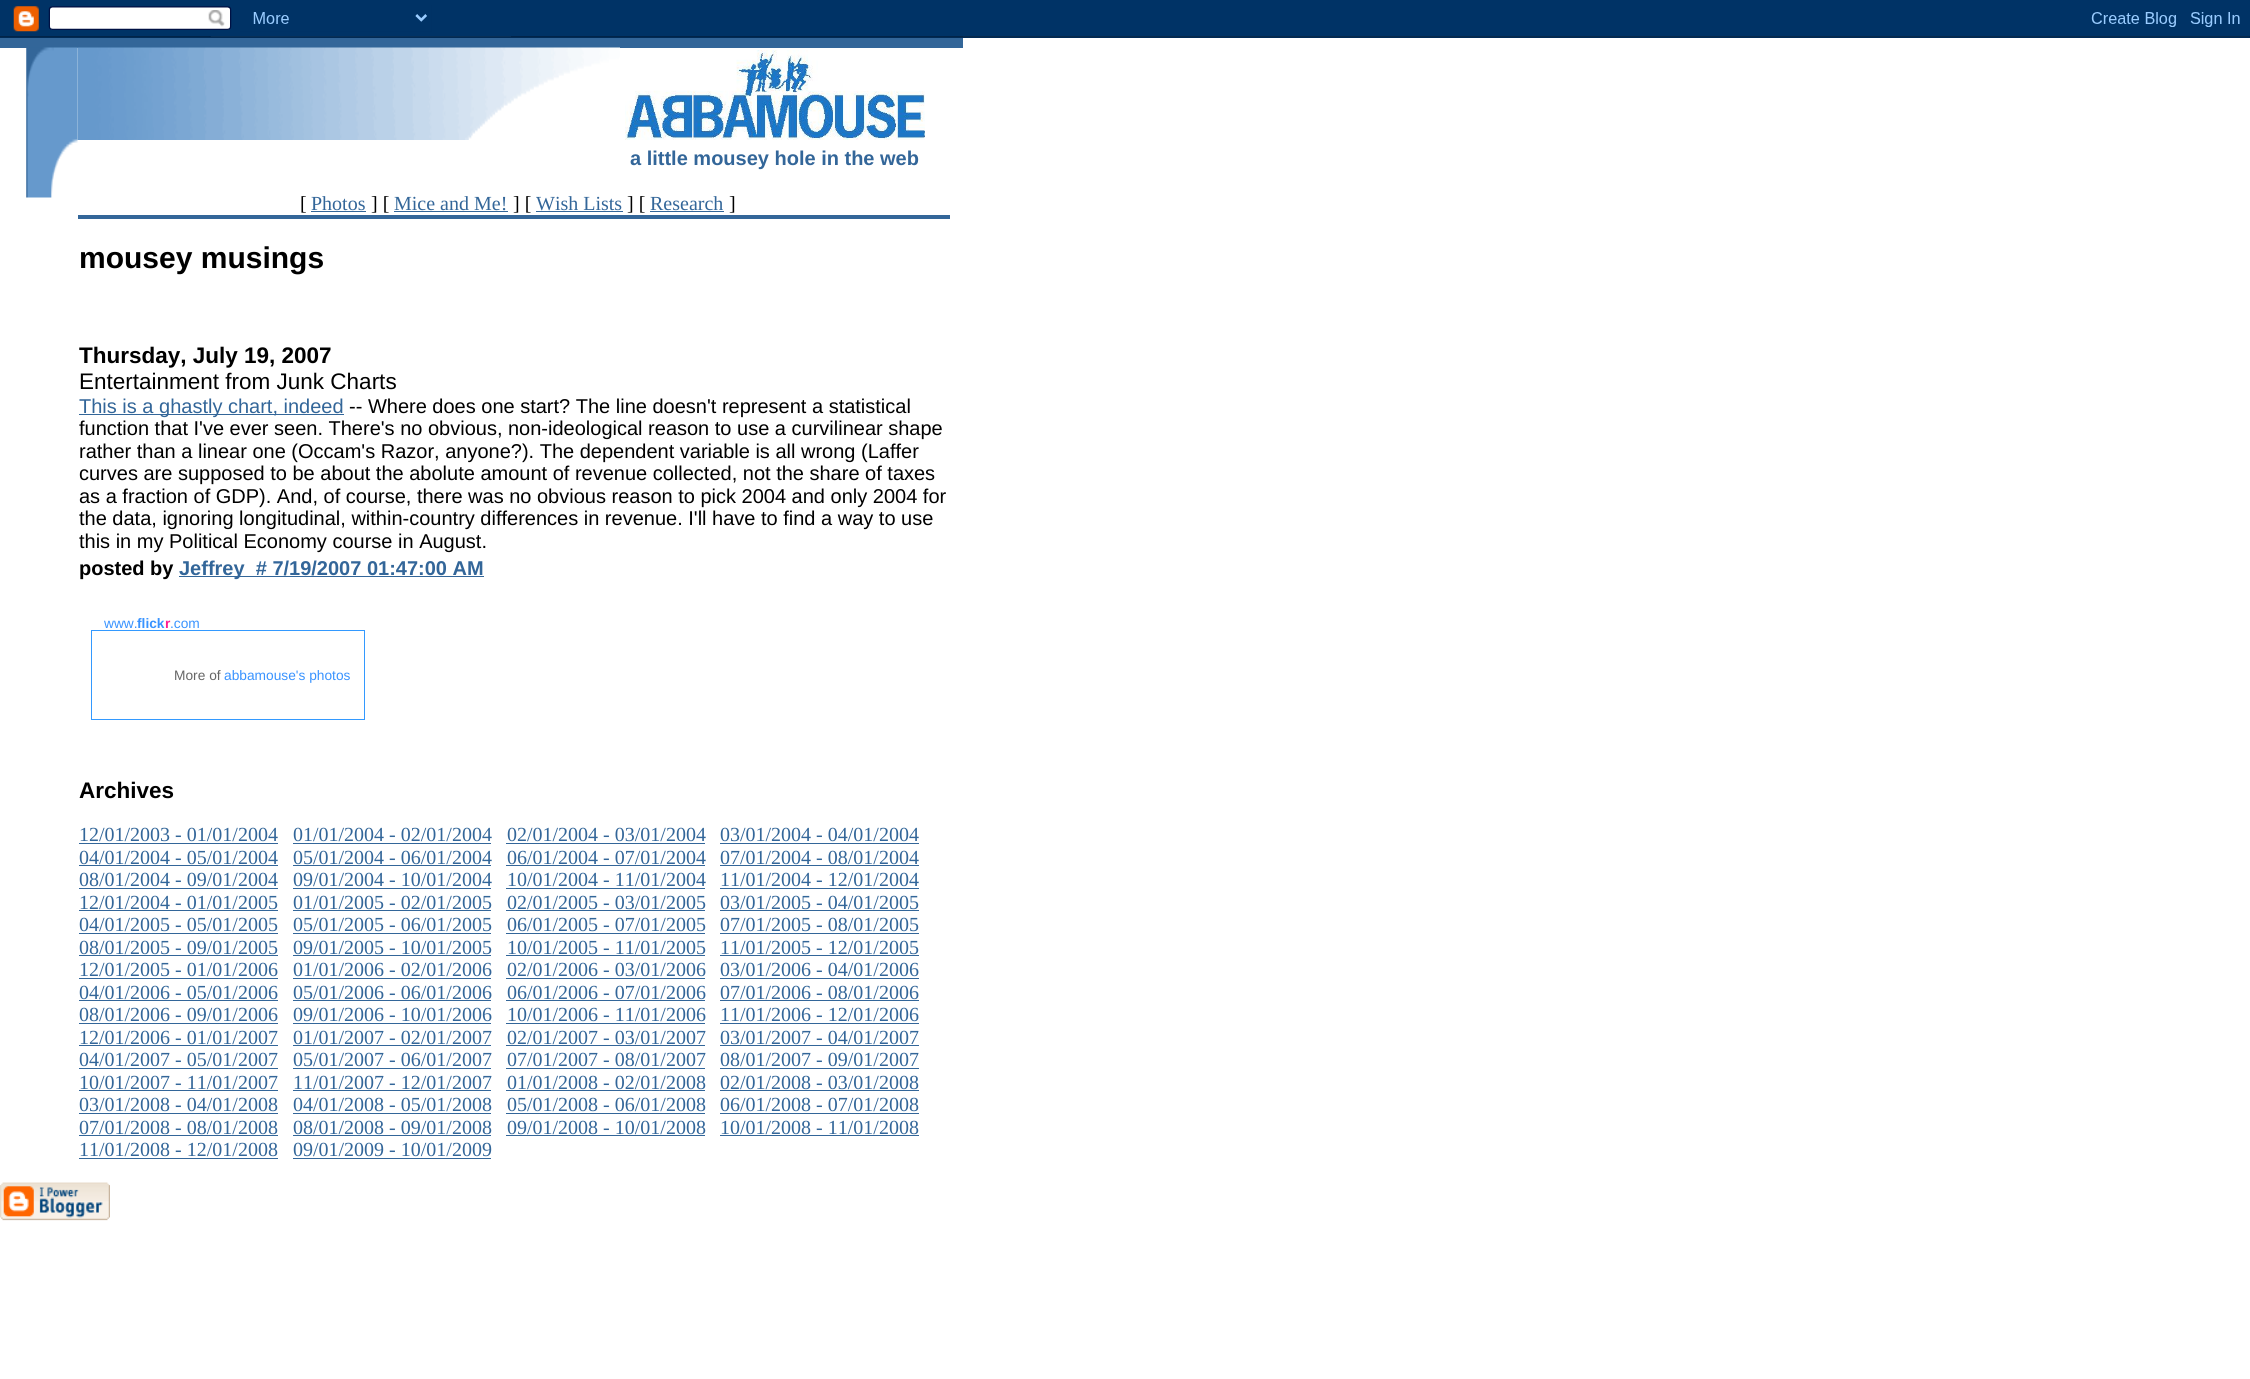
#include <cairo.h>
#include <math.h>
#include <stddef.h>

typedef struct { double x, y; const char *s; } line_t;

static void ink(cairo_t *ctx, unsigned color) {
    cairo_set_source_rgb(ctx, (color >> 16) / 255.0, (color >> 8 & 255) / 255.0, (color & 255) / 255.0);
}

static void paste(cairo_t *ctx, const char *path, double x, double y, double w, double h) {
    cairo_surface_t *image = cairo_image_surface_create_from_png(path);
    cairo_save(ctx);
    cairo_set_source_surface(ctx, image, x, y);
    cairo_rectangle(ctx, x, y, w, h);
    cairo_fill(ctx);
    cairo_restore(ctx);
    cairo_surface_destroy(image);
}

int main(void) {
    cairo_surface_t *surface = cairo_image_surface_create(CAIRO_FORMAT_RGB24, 2250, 1379);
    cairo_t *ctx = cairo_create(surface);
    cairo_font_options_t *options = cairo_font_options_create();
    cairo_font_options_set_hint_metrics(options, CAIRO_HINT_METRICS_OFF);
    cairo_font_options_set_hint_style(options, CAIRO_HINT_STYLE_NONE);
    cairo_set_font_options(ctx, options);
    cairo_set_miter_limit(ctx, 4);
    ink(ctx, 0xFFFFFF);
    cairo_paint(ctx);
    ink(ctx, 0x336699);
    cairo_rectangle(ctx, 0, 36, 963, 12);
    cairo_fill(ctx);
    paste(ctx, "media/1.png", 0, 0, 2250, 38);
    paste(ctx, "media/2.png", 26, 47, 52, 151);
    paste(ctx, "media/3.png", 77, 47, 543, 93);
    paste(ctx, "media/4.png", 625, 50, 300, 90);
    cairo_select_font_face(ctx, "Liberation Sans", CAIRO_FONT_SLANT_NORMAL, CAIRO_FONT_WEIGHT_BOLD);
    cairo_set_font_size(ctx, 20);
    cairo_move_to(ctx, 630, 165);
    cairo_show_text(ctx, "a little mousey hole in the web");
    cairo_select_font_face(ctx, "Liberation Serif", CAIRO_FONT_SLANT_NORMAL, CAIRO_FONT_WEIGHT_NORMAL);
    ink(ctx, 0x000000);
    cairo_move_to(ctx, 300, 210);
    cairo_show_text(ctx, "[");
    ink(ctx, 0x336699);
    cairo_move_to(ctx, 311, 210);
    cairo_show_text(ctx, "Photos");
    cairo_rectangle(ctx, 311, 211, 55, 1);
    cairo_fill(ctx);
    ink(ctx, 0x000000);
    cairo_move_to(ctx, 371, 210);
    cairo_show_text(ctx, "] [");
    ink(ctx, 0x336699);
    cairo_move_to(ctx, 394, 210);
    cairo_show_text(ctx, "Mice and Me!");
    cairo_rectangle(ctx, 394, 211, 114, 1);
    cairo_fill(ctx);
    ink(ctx, 0x000000);
    cairo_move_to(ctx, 513, 210);
    cairo_show_text(ctx, "] [");
    ink(ctx, 0x336699);
    cairo_move_to(ctx, 536, 210);
    cairo_show_text(ctx, "Wish Lists");
    cairo_rectangle(ctx, 536, 211, 87, 1);
    cairo_fill(ctx);
    ink(ctx, 0x000000);
    cairo_move_to(ctx, 627, 210);
    cairo_show_text(ctx, "] [");
    ink(ctx, 0x336699);
    cairo_move_to(ctx, 650, 210);
    cairo_show_text(ctx, "Research");
    cairo_rectangle(ctx, 650, 211, 74, 1);
    cairo_fill(ctx);
    ink(ctx, 0x000000);
    cairo_move_to(ctx, 729, 210);
    cairo_show_text(ctx, "]");
    ink(ctx, 0x336699);
    cairo_rectangle(ctx, 78, 215, 872, 4);
    cairo_fill(ctx);
    cairo_select_font_face(ctx, "Liberation Sans", CAIRO_FONT_SLANT_NORMAL, CAIRO_FONT_WEIGHT_BOLD);
    cairo_set_font_size(ctx, 30);
    ink(ctx, 0x000000);
    cairo_move_to(ctx, 79, 268);
    cairo_show_text(ctx, "mousey musings");
    cairo_set_font_size(ctx, 22.5);
    cairo_move_to(ctx, 79, 363);
    cairo_show_text(ctx, "Thursday, July 19, 2007");
    cairo_select_font_face(ctx, "Liberation Sans", CAIRO_FONT_SLANT_NORMAL, CAIRO_FONT_WEIGHT_NORMAL);
    cairo_move_to(ctx, 79, 389);
    cairo_show_text(ctx, "Entertainment from Junk Charts");
    ink(ctx, 0x336699);
    cairo_rectangle(ctx, 79, 414, 265, 1);
    cairo_fill(ctx);
    cairo_set_font_size(ctx, 20);
    cairo_move_to(ctx, 79, 413);
    cairo_show_text(ctx, "This is a ghastly chart, indeed");
    ink(ctx, 0x000000);
    {
        static const line_t items[] = {
            {349, 413, "-- Where does one start? The line doesn't represent a statistical"},
            {79, 435, "function that I've ever seen. There's no obvious, non-ideological reason to use a curvilinear shape"},
            {79, 458, "rather than a linear one (Occam's Razor, anyone?). The dependent variable is all wrong (Laffer"},
            {79, 480, "curves are supposed to be about the abolute amount of revenue collected, not the share of taxes"},
            {79, 503, "as a fraction of GDP). And, of course, there was no obvious reason to pick 2004 and only 2004 for"},
            {79, 525, "the data, ignoring longitudinal, within-country differences in revenue. I'll have to find a way to use"},
            {79, 548, "this in my Political Economy course in August."},
        };
        for (size_t i = 0; i < sizeof items / sizeof *items; i++) {
            cairo_move_to(ctx, items[i].x, items[i].y);
            cairo_show_text(ctx, items[i].s);
        }
    }
    cairo_select_font_face(ctx, "Liberation Sans", CAIRO_FONT_SLANT_NORMAL, CAIRO_FONT_WEIGHT_BOLD);
    cairo_move_to(ctx, 79, 575);
    cairo_show_text(ctx, "posted by");
    ink(ctx, 0x336699);
    cairo_rectangle(ctx, 179, 576, 305, 1);
    cairo_fill(ctx);
    cairo_move_to(ctx, 179, 575);
    cairo_show_text(ctx, "Jeffrey  # 7/19/2007 01:47:00 AM");
    cairo_select_font_face(ctx, "Liberation Sans", CAIRO_FONT_SLANT_NORMAL, CAIRO_FONT_WEIGHT_NORMAL);
    cairo_set_font_size(ctx, 13.75);
    ink(ctx, 0x3993FF);
    cairo_move_to(ctx, 104, 628);
    cairo_show_text(ctx, "www.");
    cairo_select_font_face(ctx, "Liberation Sans", CAIRO_FONT_SLANT_NORMAL, CAIRO_FONT_WEIGHT_BOLD);
    cairo_move_to(ctx, 137, 628);
    cairo_show_text(ctx, "flick");
    ink(ctx, 0xFF1C92);
    cairo_move_to(ctx, 165, 628);
    cairo_show_text(ctx, "r");
    cairo_select_font_face(ctx, "Liberation Sans", CAIRO_FONT_SLANT_NORMAL, CAIRO_FONT_WEIGHT_NORMAL);
    ink(ctx, 0x3993FF);
    cairo_move_to(ctx, 170, 628);
    cairo_show_text(ctx, ".com");
    cairo_rectangle(ctx, 91.5, 630.5, 273, 89);
    ink(ctx, 0x3399FF);
    cairo_set_line_width(ctx, 1);
    cairo_stroke(ctx);
    ink(ctx, 0x666666);
    cairo_move_to(ctx, 174, 680);
    cairo_show_text(ctx, "More of");
    ink(ctx, 0x3993FF);
    cairo_move_to(ctx, 224, 680);
    cairo_show_text(ctx, "abbamouse's photos");
    cairo_select_font_face(ctx, "Liberation Sans", CAIRO_FONT_SLANT_NORMAL, CAIRO_FONT_WEIGHT_BOLD);
    cairo_set_font_size(ctx, 22.5);
    ink(ctx, 0x000000);
    cairo_move_to(ctx, 79, 798);
    cairo_show_text(ctx, "Archives");
    cairo_select_font_face(ctx, "Liberation Serif", CAIRO_FONT_SLANT_NORMAL, CAIRO_FONT_WEIGHT_NORMAL);
    cairo_set_font_size(ctx, 20);
    ink(ctx, 0x336699);
    cairo_move_to(ctx, 79, 841);
    cairo_show_text(ctx, "12/01/2003 - 01/01/2004");
    cairo_rectangle(ctx, 79, 843, 199, 1);
    cairo_fill(ctx);
    cairo_move_to(ctx, 293, 841);
    cairo_show_text(ctx, "01/01/2004 - 02/01/2004");
    cairo_rectangle(ctx, 293, 843, 198, 1);
    cairo_fill(ctx);
    cairo_move_to(ctx, 507, 841);
    cairo_show_text(ctx, "02/01/2004 - 03/01/2004");
    cairo_rectangle(ctx, 506, 843, 199, 1);
    cairo_fill(ctx);
    cairo_move_to(ctx, 720, 841);
    cairo_show_text(ctx, "03/01/2004 - 04/01/2004");
    cairo_rectangle(ctx, 720, 843, 199, 1);
    cairo_fill(ctx);
    cairo_move_to(ctx, 79, 864);
    cairo_show_text(ctx, "04/01/2004 - 05/01/2004");
    cairo_rectangle(ctx, 79, 865, 199, 1);
    cairo_fill(ctx);
    cairo_move_to(ctx, 293, 864);
    cairo_show_text(ctx, "05/01/2004 - 06/01/2004");
    cairo_rectangle(ctx, 293, 865, 198, 1);
    cairo_fill(ctx);
    cairo_move_to(ctx, 507, 864);
    cairo_show_text(ctx, "06/01/2004 - 07/01/2004");
    cairo_rectangle(ctx, 506, 865, 199, 1);
    cairo_fill(ctx);
    cairo_move_to(ctx, 720, 864);
    cairo_show_text(ctx, "07/01/2004 - 08/01/2004");
    cairo_rectangle(ctx, 720, 865, 199, 1);
    cairo_fill(ctx);
    cairo_move_to(ctx, 79, 886);
    cairo_show_text(ctx, "08/01/2004 - 09/01/2004");
    cairo_rectangle(ctx, 79, 888, 199, 1);
    cairo_fill(ctx);
    cairo_move_to(ctx, 293, 886);
    cairo_show_text(ctx, "09/01/2004 - 10/01/2004");
    cairo_rectangle(ctx, 293, 888, 198, 1);
    cairo_fill(ctx);
    cairo_move_to(ctx, 507, 886);
    cairo_show_text(ctx, "10/01/2004 - 11/01/2004");
    cairo_rectangle(ctx, 506, 888, 199, 1);
    cairo_fill(ctx);
    cairo_move_to(ctx, 720, 886);
    cairo_show_text(ctx, "11/01/2004 - 12/01/2004");
    cairo_rectangle(ctx, 720, 888, 199, 1);
    cairo_fill(ctx);
    cairo_move_to(ctx, 79, 909);
    cairo_show_text(ctx, "12/01/2004 - 01/01/2005");
    cairo_rectangle(ctx, 79, 910, 199, 1);
    cairo_fill(ctx);
    cairo_move_to(ctx, 293, 909);
    cairo_show_text(ctx, "01/01/2005 - 02/01/2005");
    cairo_rectangle(ctx, 293, 910, 198, 1);
    cairo_fill(ctx);
    cairo_move_to(ctx, 507, 909);
    cairo_show_text(ctx, "02/01/2005 - 03/01/2005");
    cairo_rectangle(ctx, 506, 910, 199, 1);
    cairo_fill(ctx);
    cairo_move_to(ctx, 720, 909);
    cairo_show_text(ctx, "03/01/2005 - 04/01/2005");
    cairo_rectangle(ctx, 720, 910, 199, 1);
    cairo_fill(ctx);
    cairo_move_to(ctx, 79, 931);
    cairo_show_text(ctx, "04/01/2005 - 05/01/2005");
    cairo_rectangle(ctx, 79, 933, 199, 1);
    cairo_fill(ctx);
    cairo_move_to(ctx, 293, 931);
    cairo_show_text(ctx, "05/01/2005 - 06/01/2005");
    cairo_rectangle(ctx, 293, 933, 198, 1);
    cairo_fill(ctx);
    cairo_move_to(ctx, 507, 931);
    cairo_show_text(ctx, "06/01/2005 - 07/01/2005");
    cairo_rectangle(ctx, 506, 933, 199, 1);
    cairo_fill(ctx);
    cairo_move_to(ctx, 720, 931);
    cairo_show_text(ctx, "07/01/2005 - 08/01/2005");
    cairo_rectangle(ctx, 720, 933, 199, 1);
    cairo_fill(ctx);
    cairo_move_to(ctx, 79, 954);
    cairo_show_text(ctx, "08/01/2005 - 09/01/2005");
    cairo_rectangle(ctx, 79, 955, 199, 1);
    cairo_fill(ctx);
    cairo_move_to(ctx, 293, 954);
    cairo_show_text(ctx, "09/01/2005 - 10/01/2005");
    cairo_rectangle(ctx, 293, 955, 198, 1);
    cairo_fill(ctx);
    cairo_move_to(ctx, 507, 954);
    cairo_show_text(ctx, "10/01/2005 - 11/01/2005");
    cairo_rectangle(ctx, 506, 955, 199, 1);
    cairo_fill(ctx);
    cairo_move_to(ctx, 720, 954);
    cairo_show_text(ctx, "11/01/2005 - 12/01/2005");
    cairo_rectangle(ctx, 720, 955, 199, 1);
    cairo_fill(ctx);
    cairo_move_to(ctx, 79, 976);
    cairo_show_text(ctx, "12/01/2005 - 01/01/2006");
    cairo_rectangle(ctx, 79, 978, 199, 1);
    cairo_fill(ctx);
    cairo_move_to(ctx, 293, 976);
    cairo_show_text(ctx, "01/01/2006 - 02/01/2006");
    cairo_rectangle(ctx, 293, 978, 198, 1);
    cairo_fill(ctx);
    cairo_move_to(ctx, 507, 976);
    cairo_show_text(ctx, "02/01/2006 - 03/01/2006");
    cairo_rectangle(ctx, 506, 978, 199, 1);
    cairo_fill(ctx);
    cairo_move_to(ctx, 720, 976);
    cairo_show_text(ctx, "03/01/2006 - 04/01/2006");
    cairo_rectangle(ctx, 720, 978, 199, 1);
    cairo_fill(ctx);
    cairo_move_to(ctx, 79, 999);
    cairo_show_text(ctx, "04/01/2006 - 05/01/2006");
    cairo_rectangle(ctx, 79, 1000, 199, 1);
    cairo_fill(ctx);
    cairo_move_to(ctx, 293, 999);
    cairo_show_text(ctx, "05/01/2006 - 06/01/2006");
    cairo_rectangle(ctx, 293, 1000, 198, 1);
    cairo_fill(ctx);
    cairo_move_to(ctx, 507, 999);
    cairo_show_text(ctx, "06/01/2006 - 07/01/2006");
    cairo_rectangle(ctx, 506, 1000, 199, 1);
    cairo_fill(ctx);
    cairo_move_to(ctx, 720, 999);
    cairo_show_text(ctx, "07/01/2006 - 08/01/2006");
    cairo_rectangle(ctx, 720, 1000, 199, 1);
    cairo_fill(ctx);
    cairo_move_to(ctx, 79, 1021);
    cairo_show_text(ctx, "08/01/2006 - 09/01/2006");
    cairo_rectangle(ctx, 79, 1023, 199, 1);
    cairo_fill(ctx);
    cairo_move_to(ctx, 293, 1021);
    cairo_show_text(ctx, "09/01/2006 - 10/01/2006");
    cairo_rectangle(ctx, 293, 1023, 198, 1);
    cairo_fill(ctx);
    cairo_move_to(ctx, 507, 1021);
    cairo_show_text(ctx, "10/01/2006 - 11/01/2006");
    cairo_rectangle(ctx, 506, 1023, 199, 1);
    cairo_fill(ctx);
    cairo_move_to(ctx, 720, 1021);
    cairo_show_text(ctx, "11/01/2006 - 12/01/2006");
    cairo_rectangle(ctx, 720, 1023, 199, 1);
    cairo_fill(ctx);
    cairo_move_to(ctx, 79, 1044);
    cairo_show_text(ctx, "12/01/2006 - 01/01/2007");
    cairo_rectangle(ctx, 79, 1045, 199, 1);
    cairo_fill(ctx);
    cairo_move_to(ctx, 293, 1044);
    cairo_show_text(ctx, "01/01/2007 - 02/01/2007");
    cairo_rectangle(ctx, 293, 1045, 198, 1);
    cairo_fill(ctx);
    cairo_move_to(ctx, 507, 1044);
    cairo_show_text(ctx, "02/01/2007 - 03/01/2007");
    cairo_rectangle(ctx, 506, 1045, 199, 1);
    cairo_fill(ctx);
    cairo_move_to(ctx, 720, 1044);
    cairo_show_text(ctx, "03/01/2007 - 04/01/2007");
    cairo_rectangle(ctx, 720, 1045, 199, 1);
    cairo_fill(ctx);
    cairo_move_to(ctx, 79, 1066);
    cairo_show_text(ctx, "04/01/2007 - 05/01/2007");
    cairo_rectangle(ctx, 79, 1068, 199, 1);
    cairo_fill(ctx);
    cairo_move_to(ctx, 293, 1066);
    cairo_show_text(ctx, "05/01/2007 - 06/01/2007");
    cairo_rectangle(ctx, 293, 1068, 198, 1);
    cairo_fill(ctx);
    cairo_move_to(ctx, 507, 1066);
    cairo_show_text(ctx, "07/01/2007 - 08/01/2007");
    cairo_rectangle(ctx, 506, 1068, 199, 1);
    cairo_fill(ctx);
    cairo_move_to(ctx, 720, 1066);
    cairo_show_text(ctx, "08/01/2007 - 09/01/2007");
    cairo_rectangle(ctx, 720, 1068, 199, 1);
    cairo_fill(ctx);
    cairo_move_to(ctx, 79, 1089);
    cairo_show_text(ctx, "10/01/2007 - 11/01/2007");
    cairo_rectangle(ctx, 79, 1090, 199, 1);
    cairo_fill(ctx);
    cairo_move_to(ctx, 293, 1089);
    cairo_show_text(ctx, "11/01/2007 - 12/01/2007");
    cairo_rectangle(ctx, 293, 1090, 198, 1);
    cairo_fill(ctx);
    cairo_move_to(ctx, 507, 1089);
    cairo_show_text(ctx, "01/01/2008 - 02/01/2008");
    cairo_rectangle(ctx, 506, 1090, 199, 1);
    cairo_fill(ctx);
    cairo_move_to(ctx, 720, 1089);
    cairo_show_text(ctx, "02/01/2008 - 03/01/2008");
    cairo_rectangle(ctx, 720, 1090, 199, 1);
    cairo_fill(ctx);
    cairo_move_to(ctx, 79, 1111);
    cairo_show_text(ctx, "03/01/2008 - 04/01/2008");
    cairo_rectangle(ctx, 79, 1113, 199, 1);
    cairo_fill(ctx);
    cairo_move_to(ctx, 293, 1111);
    cairo_show_text(ctx, "04/01/2008 - 05/01/2008");
    cairo_rectangle(ctx, 293, 1113, 198, 1);
    cairo_fill(ctx);
    cairo_move_to(ctx, 507, 1111);
    cairo_show_text(ctx, "05/01/2008 - 06/01/2008");
    cairo_rectangle(ctx, 506, 1113, 199, 1);
    cairo_fill(ctx);
    cairo_move_to(ctx, 720, 1111);
    cairo_show_text(ctx, "06/01/2008 - 07/01/2008");
    cairo_rectangle(ctx, 720, 1113, 199, 1);
    cairo_fill(ctx);
    cairo_move_to(ctx, 79, 1134);
    cairo_show_text(ctx, "07/01/2008 - 08/01/2008");
    cairo_rectangle(ctx, 79, 1135, 199, 1);
    cairo_fill(ctx);
    cairo_move_to(ctx, 293, 1134);
    cairo_show_text(ctx, "08/01/2008 - 09/01/2008");
    cairo_rectangle(ctx, 293, 1135, 198, 1);
    cairo_fill(ctx);
    cairo_move_to(ctx, 507, 1134);
    cairo_show_text(ctx, "09/01/2008 - 10/01/2008");
    cairo_rectangle(ctx, 506, 1135, 199, 1);
    cairo_fill(ctx);
    cairo_move_to(ctx, 720, 1134);
    cairo_show_text(ctx, "10/01/2008 - 11/01/2008");
    cairo_rectangle(ctx, 720, 1135, 199, 1);
    cairo_fill(ctx);
    cairo_move_to(ctx, 79, 1156);
    cairo_show_text(ctx, "11/01/2008 - 12/01/2008");
    cairo_rectangle(ctx, 79, 1158, 199, 1);
    cairo_fill(ctx);
    cairo_move_to(ctx, 293, 1156);
    cairo_show_text(ctx, "09/01/2009 - 10/01/2009");
    cairo_rectangle(ctx, 293, 1158, 198, 1);
    cairo_fill(ctx);
    paste(ctx, "media/5.png", 0, 1182, 110, 39);
    cairo_surface_write_to_png(surface, "image.png");
    cairo_font_options_destroy(options);
    cairo_destroy(ctx);
    cairo_surface_destroy(surface);
    return 0;
}
